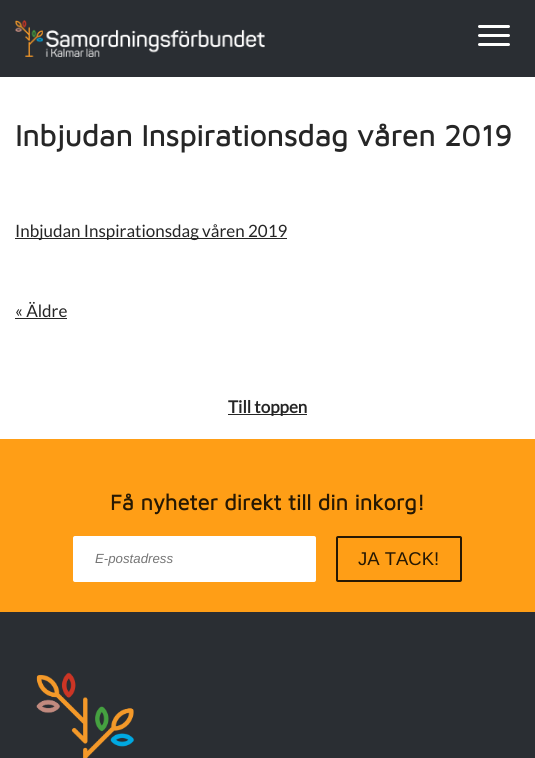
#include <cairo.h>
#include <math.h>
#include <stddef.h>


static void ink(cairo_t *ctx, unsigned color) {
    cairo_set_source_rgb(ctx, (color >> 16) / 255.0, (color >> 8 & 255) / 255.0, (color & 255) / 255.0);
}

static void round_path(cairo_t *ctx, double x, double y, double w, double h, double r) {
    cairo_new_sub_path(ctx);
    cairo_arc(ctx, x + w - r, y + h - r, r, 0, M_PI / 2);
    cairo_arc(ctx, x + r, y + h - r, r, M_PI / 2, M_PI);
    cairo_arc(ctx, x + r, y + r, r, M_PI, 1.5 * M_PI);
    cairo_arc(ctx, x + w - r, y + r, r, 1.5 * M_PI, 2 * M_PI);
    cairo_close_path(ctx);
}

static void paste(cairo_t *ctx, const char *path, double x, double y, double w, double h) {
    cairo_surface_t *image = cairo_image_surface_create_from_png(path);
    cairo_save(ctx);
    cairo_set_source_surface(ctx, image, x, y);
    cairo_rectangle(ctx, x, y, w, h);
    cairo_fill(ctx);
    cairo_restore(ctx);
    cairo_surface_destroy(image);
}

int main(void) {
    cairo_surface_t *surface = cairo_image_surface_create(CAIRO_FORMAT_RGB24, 535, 758);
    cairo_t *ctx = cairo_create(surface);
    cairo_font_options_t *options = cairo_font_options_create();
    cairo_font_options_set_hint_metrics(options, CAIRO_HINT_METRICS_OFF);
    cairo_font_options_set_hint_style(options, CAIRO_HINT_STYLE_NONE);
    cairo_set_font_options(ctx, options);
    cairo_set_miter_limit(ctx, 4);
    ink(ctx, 0xFFFFFF);
    cairo_paint(ctx);
    ink(ctx, 0x2A2E33);
    cairo_rectangle(ctx, 0, 0, 535, 77);
    cairo_fill(ctx);
    paste(ctx, "media/1.png", 15, 20, 250, 37);
    ink(ctx, 0xFFFFFF);
    round_path(ctx, 478, 34, 32, 3, 1.5);
    cairo_fill(ctx);
    round_path(ctx, 478, 25, 32, 3, 1.5);
    cairo_fill(ctx);
    round_path(ctx, 478, 43, 32, 3, 1.5);
    cairo_fill(ctx);
    cairo_select_font_face(ctx, "Maven Pro", CAIRO_FONT_SLANT_NORMAL, CAIRO_FONT_WEIGHT_BOLD);
    cairo_set_font_size(ctx, 30);
    ink(ctx, 0x262626);
    cairo_move_to(ctx, 15, 146);
    cairo_show_text(ctx, "Inbjudan Inspirationsdag våren 2019");
    cairo_rectangle(ctx, 15, 238, 272, 1);
    cairo_fill(ctx);
    cairo_select_font_face(ctx, "Lato", CAIRO_FONT_SLANT_NORMAL, CAIRO_FONT_WEIGHT_NORMAL);
    cairo_set_font_size(ctx, 17);
    cairo_move_to(ctx, 15, 237);
    cairo_show_text(ctx, "Inbjudan Inspirationsdag våren 2019");
    cairo_move_to(ctx, 15, 317);
    cairo_show_text(ctx, "« Äldre");
    cairo_rectangle(ctx, 15, 318, 52, 1);
    cairo_fill(ctx);
    cairo_rectangle(ctx, 228, 414, 79, 1);
    cairo_fill(ctx);
    cairo_select_font_face(ctx, "Lato", CAIRO_FONT_SLANT_NORMAL, CAIRO_FONT_WEIGHT_BOLD);
    cairo_move_to(ctx, 228, 413);
    cairo_show_text(ctx, "Till toppen");
    ink(ctx, 0xFF9E16);
    cairo_rectangle(ctx, 0, 439, 535, 173);
    cairo_fill(ctx);
    cairo_select_font_face(ctx, "Maven Pro", CAIRO_FONT_SLANT_NORMAL, CAIRO_FONT_WEIGHT_BOLD);
    cairo_set_font_size(ctx, 22);
    ink(ctx, 0x261803);
    cairo_move_to(ctx, 110, 510);
    cairo_show_text(ctx, "Få nyheter direkt till din inkorg!");
    ink(ctx, 0xFFFFFF);
    round_path(ctx, 74, 537, 241, 44, 1);
    cairo_fill_preserve(ctx);
    cairo_stroke(ctx);
    cairo_select_font_face(ctx, "Liberation Sans", CAIRO_FONT_SLANT_ITALIC, CAIRO_FONT_WEIGHT_NORMAL);
    cairo_set_font_size(ctx, 13.25);
    ink(ctx, 0x757575);
    cairo_move_to(ctx, 95, 563);
    cairo_show_text(ctx, "E-postadress");
    round_path(ctx, 337, 537, 124, 44, 1);
    ink(ctx, 0x261803);
    cairo_stroke(ctx);
    cairo_select_font_face(ctx, "Liberation Sans", CAIRO_FONT_SLANT_NORMAL, CAIRO_FONT_WEIGHT_NORMAL);
    cairo_set_font_size(ctx, 18.5);
    cairo_move_to(ctx, 358, 565);
    cairo_show_text(ctx, "JA TACK!");
    ink(ctx, 0x2A2E33);
    cairo_rectangle(ctx, 0, 612, 535, 146);
    cairo_fill(ctx);
    paste(ctx, "media/2.png", 36, 672, 99, 86);
    cairo_surface_write_to_png(surface, "image.png");
    cairo_font_options_destroy(options);
    cairo_destroy(ctx);
    cairo_surface_destroy(surface);
    return 0;
}
